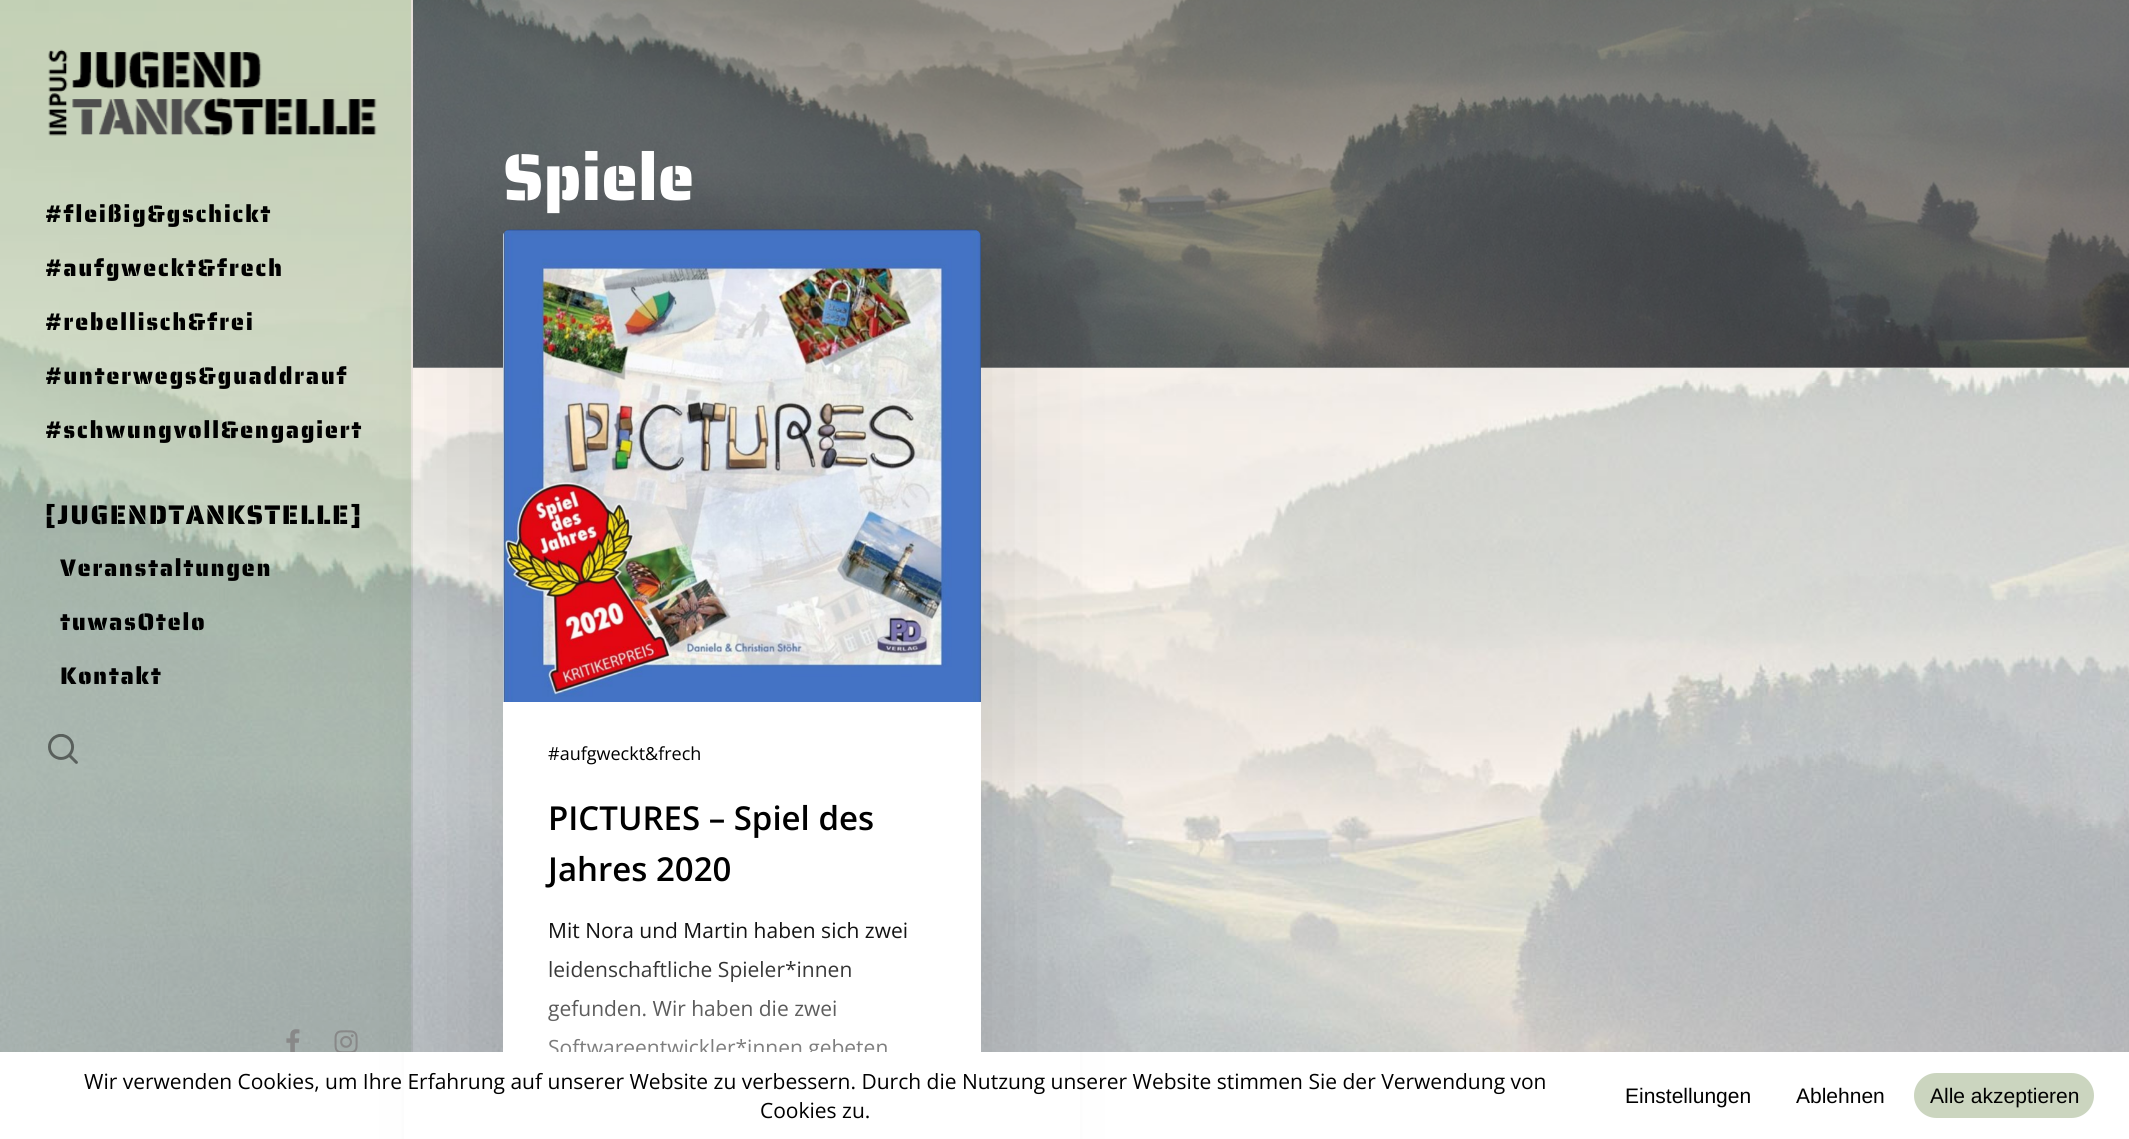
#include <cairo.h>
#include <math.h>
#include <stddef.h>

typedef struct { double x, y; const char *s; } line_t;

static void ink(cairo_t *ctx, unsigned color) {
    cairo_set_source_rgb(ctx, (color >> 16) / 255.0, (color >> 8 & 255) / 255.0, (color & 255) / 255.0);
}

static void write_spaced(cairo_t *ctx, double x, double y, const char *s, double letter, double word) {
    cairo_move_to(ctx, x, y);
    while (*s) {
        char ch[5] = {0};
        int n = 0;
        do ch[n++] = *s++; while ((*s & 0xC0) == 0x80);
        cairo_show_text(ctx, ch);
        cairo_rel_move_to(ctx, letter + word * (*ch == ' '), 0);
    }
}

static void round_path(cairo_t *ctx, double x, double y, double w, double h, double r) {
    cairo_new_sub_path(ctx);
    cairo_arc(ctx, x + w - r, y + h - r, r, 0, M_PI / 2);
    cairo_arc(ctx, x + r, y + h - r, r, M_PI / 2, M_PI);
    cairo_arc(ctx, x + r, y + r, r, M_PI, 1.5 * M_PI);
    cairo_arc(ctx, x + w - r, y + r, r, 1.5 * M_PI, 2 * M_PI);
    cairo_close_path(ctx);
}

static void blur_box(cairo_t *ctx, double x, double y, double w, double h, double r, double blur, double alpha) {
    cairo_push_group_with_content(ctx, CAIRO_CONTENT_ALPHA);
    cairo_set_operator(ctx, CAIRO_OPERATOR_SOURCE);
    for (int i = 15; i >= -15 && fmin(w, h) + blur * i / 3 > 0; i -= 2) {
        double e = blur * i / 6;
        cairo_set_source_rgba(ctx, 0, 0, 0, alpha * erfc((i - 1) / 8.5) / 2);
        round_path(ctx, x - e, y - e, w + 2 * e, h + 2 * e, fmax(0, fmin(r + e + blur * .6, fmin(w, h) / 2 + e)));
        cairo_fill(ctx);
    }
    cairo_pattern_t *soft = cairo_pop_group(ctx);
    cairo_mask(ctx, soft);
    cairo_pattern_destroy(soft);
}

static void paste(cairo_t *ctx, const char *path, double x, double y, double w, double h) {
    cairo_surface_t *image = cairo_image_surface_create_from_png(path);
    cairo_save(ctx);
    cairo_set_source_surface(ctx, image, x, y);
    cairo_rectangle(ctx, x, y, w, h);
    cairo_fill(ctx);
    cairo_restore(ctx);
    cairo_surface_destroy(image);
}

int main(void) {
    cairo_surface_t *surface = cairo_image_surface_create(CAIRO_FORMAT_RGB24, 2129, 1139);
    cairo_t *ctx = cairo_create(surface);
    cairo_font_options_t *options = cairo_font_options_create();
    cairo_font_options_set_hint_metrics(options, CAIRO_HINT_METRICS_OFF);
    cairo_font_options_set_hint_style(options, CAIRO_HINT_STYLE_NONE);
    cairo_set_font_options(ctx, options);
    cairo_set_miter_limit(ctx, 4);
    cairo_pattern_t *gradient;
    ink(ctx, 0xFFFFFF);
    cairo_paint(ctx);
    paste(ctx, "media/1.png", 0, 0, 2129, 1052);
    ink(ctx, 0xFFFFFF);
    cairo_rectangle(ctx, 413, 367, 1716, 1);
    cairo_fill(ctx);
    paste(ctx, "media/6.png", 413, 0, 1716, 368);
    cairo_set_source_rgba(ctx, 0.098, 0.098, 0.098, 0.35);
    cairo_rectangle(ctx, 413, 0, 1716, 368);
    cairo_fill(ctx);
    ink(ctx, 0x000000);
    blur_box(ctx, 503, 275, 478, 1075, 8, 67.5, 0.14);
    cairo_set_source_rgba(ctx, 0, 0, 0, 0.07);
    cairo_rectangle(ctx, 411, 0, 2, 1052);
    cairo_fill(ctx);
    gradient = cairo_pattern_create_linear(205, 0, 206, 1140);
    cairo_pattern_add_color_stop_rgba(gradient, 0, 0.102, 0.412, 0, 0.23);
    cairo_pattern_add_color_stop_rgba(gradient, 1, 0.259, 0.373, 0.278, 0.17);
    cairo_set_source(ctx, gradient);
    cairo_pattern_destroy(gradient);
    cairo_rectangle(ctx, 0, 0, 411, 1052);
    cairo_fill(ctx);
    paste(ctx, "media/2.png", 48, 49, 329, 87);
    cairo_select_font_face(ctx, "Saira Stencil One", CAIRO_FONT_SLANT_NORMAL, CAIRO_FONT_WEIGHT_NORMAL);
    cairo_set_font_size(ctx, 24);
    ink(ctx, 0x000000);
    {
        static const line_t items[] = {
            {45, 222, "#fleißig&gschickt"},
            {45, 276, "#aufgweckt&frech"},
            {45, 330, "#rebellisch&frei"},
            {45, 384, "#unterwegs&guaddrauf"},
            {45, 438, "#schwungvoll&engagiert"},
        };
        for (size_t i = 0; i < sizeof items / sizeof *items; i++) {
            write_spaced(ctx, items[i].x, items[i].y, items[i].s, 1.5, 0);
        }
    }
    cairo_set_font_size(ctx, 27);
    write_spaced(ctx, 45, 524, "[JUGENDTANKSTELLE]", 1.5, 0);
    cairo_set_font_size(ctx, 24);
    {
        static const line_t items[] = {
            {60, 576, "Veranstaltungen"},
            {60, 630, "tuwasOtelo"},
            {60, 684, "Kontakt"},
        };
        for (size_t i = 0; i < sizeof items / sizeof *items; i++) {
            write_spaced(ctx, items[i].x, items[i].y, items[i].s, 1.5, 0);
        }
    }
    paste(ctx, "media/3.png", 48, 734, 30, 30);
    paste(ctx, "media/4.png", 286, 1029, 14, 23);
    paste(ctx, "media/5.png", 334, 1030, 24, 22);
    cairo_set_font_size(ctx, 66);
    ink(ctx, 0xFFFFFF);
    cairo_move_to(ctx, 503, 200);
    cairo_show_text(ctx, "Spiele");
    paste(ctx, "media/7.png", 503, 229, 478, 473);
    cairo_rectangle(ctx, 503, 702, 478, 350);
    cairo_fill(ctx);
    cairo_select_font_face(ctx, "Open Sans", CAIRO_FONT_SLANT_NORMAL, CAIRO_FONT_WEIGHT_NORMAL);
    cairo_set_font_size(ctx, 18);
    ink(ctx, 0x000000);
    cairo_move_to(ctx, 548, 760);
    cairo_show_text(ctx, "#aufgweckt&frech");
    cairo_select_font_face(ctx, "Open Sans SemiBold", CAIRO_FONT_SLANT_NORMAL, CAIRO_FONT_WEIGHT_NORMAL);
    cairo_set_font_size(ctx, 33);
    cairo_move_to(ctx, 548, 830);
    cairo_show_text(ctx, "PICTURES – Spiel des");
    cairo_move_to(ctx, 548, 881);
    cairo_show_text(ctx, "Jahres 2020");
    cairo_select_font_face(ctx, "Open Sans", CAIRO_FONT_SLANT_NORMAL, CAIRO_FONT_WEIGHT_NORMAL);
    cairo_set_font_size(ctx, 21);
    gradient = cairo_pattern_create_linear(742, 911, 742, 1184);
    cairo_pattern_add_color_stop_rgba(gradient, 0, 0, 0, 0, 1);
    cairo_pattern_add_color_stop_rgba(gradient, 1, 1, 1, 1, 1);
    cairo_set_source(ctx, gradient);
    cairo_pattern_destroy(gradient);
    {
        static const line_t items[] = {
            {548, 938, "Mit Nora und Martin haben sich zwei"},
            {548, 977, "leidenschaftliche Spieler*innen"},
            {548, 1016, "gefunden. Wir haben die zwei"},
            {548, 1055, "Softwareentwickler*innen gebeten"},
        };
        for (size_t i = 0; i < sizeof items / sizeof *items; i++) {
            cairo_move_to(ctx, items[i].x, items[i].y);
            cairo_show_text(ctx, items[i].s);
        }
    }
    ink(ctx, 0xFFFFFF);
    cairo_rectangle(ctx, 404, 1052, 676, 87);
    cairo_fill(ctx);
    ink(ctx, 0x000000);
    cairo_move_to(ctx, 84, 1089);
    cairo_show_text(ctx, "Wir verwenden Cookies, um Ihre Erfahrung auf unserer Website zu verbessern. Durch die Nutzung unserer Website stimmen Sie der Verwendung von");
    cairo_move_to(ctx, 760, 1118);
    cairo_show_text(ctx, "Cookies zu.");
    cairo_select_font_face(ctx, "Liberation Sans", CAIRO_FONT_SLANT_NORMAL, CAIRO_FONT_WEIGHT_NORMAL);
    cairo_move_to(ctx, 1625, 1103);
    cairo_show_text(ctx, "Einstellungen");
    cairo_move_to(ctx, 1796, 1103);
    cairo_show_text(ctx, "Ablehnen");
    ink(ctx, 0xCBD5BF);
    round_path(ctx, 1914, 1073, 180, 45, 22.5);
    cairo_fill(ctx);
    ink(ctx, 0x000000);
    cairo_move_to(ctx, 1930, 1103);
    cairo_show_text(ctx, "Alle akzeptieren");
    cairo_surface_write_to_png(surface, "image.png");
    cairo_font_options_destroy(options);
    cairo_destroy(ctx);
    cairo_surface_destroy(surface);
    return 0;
}
